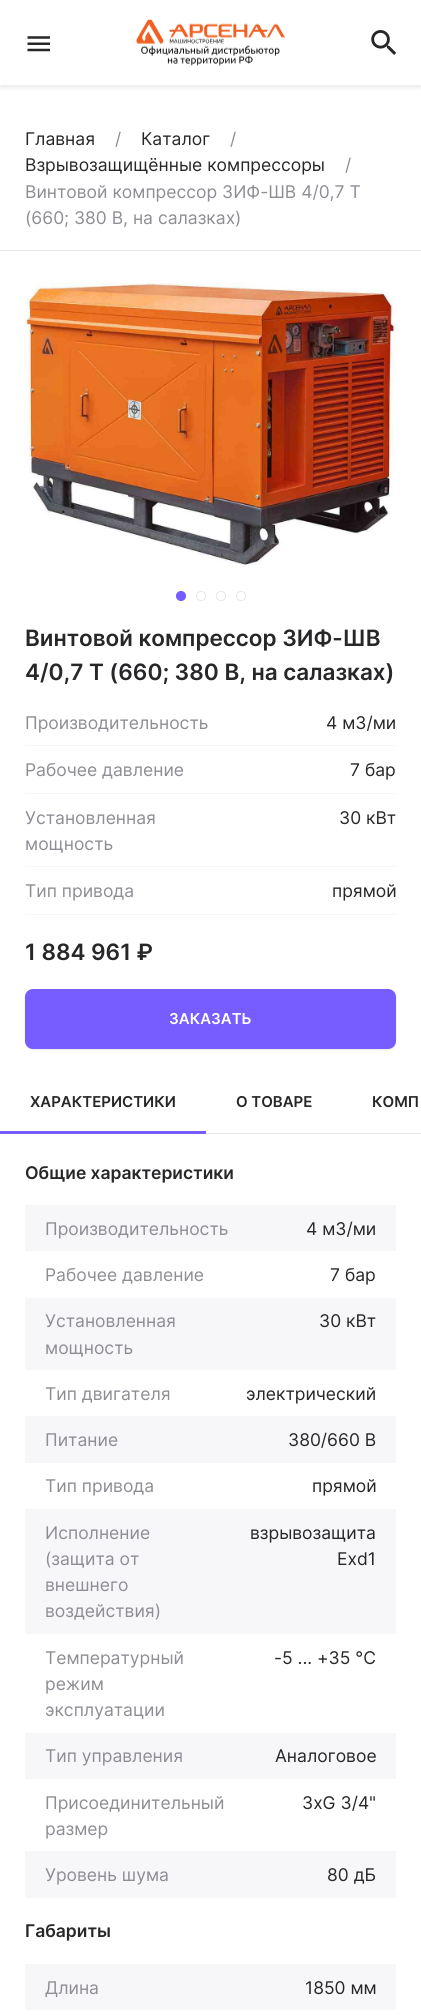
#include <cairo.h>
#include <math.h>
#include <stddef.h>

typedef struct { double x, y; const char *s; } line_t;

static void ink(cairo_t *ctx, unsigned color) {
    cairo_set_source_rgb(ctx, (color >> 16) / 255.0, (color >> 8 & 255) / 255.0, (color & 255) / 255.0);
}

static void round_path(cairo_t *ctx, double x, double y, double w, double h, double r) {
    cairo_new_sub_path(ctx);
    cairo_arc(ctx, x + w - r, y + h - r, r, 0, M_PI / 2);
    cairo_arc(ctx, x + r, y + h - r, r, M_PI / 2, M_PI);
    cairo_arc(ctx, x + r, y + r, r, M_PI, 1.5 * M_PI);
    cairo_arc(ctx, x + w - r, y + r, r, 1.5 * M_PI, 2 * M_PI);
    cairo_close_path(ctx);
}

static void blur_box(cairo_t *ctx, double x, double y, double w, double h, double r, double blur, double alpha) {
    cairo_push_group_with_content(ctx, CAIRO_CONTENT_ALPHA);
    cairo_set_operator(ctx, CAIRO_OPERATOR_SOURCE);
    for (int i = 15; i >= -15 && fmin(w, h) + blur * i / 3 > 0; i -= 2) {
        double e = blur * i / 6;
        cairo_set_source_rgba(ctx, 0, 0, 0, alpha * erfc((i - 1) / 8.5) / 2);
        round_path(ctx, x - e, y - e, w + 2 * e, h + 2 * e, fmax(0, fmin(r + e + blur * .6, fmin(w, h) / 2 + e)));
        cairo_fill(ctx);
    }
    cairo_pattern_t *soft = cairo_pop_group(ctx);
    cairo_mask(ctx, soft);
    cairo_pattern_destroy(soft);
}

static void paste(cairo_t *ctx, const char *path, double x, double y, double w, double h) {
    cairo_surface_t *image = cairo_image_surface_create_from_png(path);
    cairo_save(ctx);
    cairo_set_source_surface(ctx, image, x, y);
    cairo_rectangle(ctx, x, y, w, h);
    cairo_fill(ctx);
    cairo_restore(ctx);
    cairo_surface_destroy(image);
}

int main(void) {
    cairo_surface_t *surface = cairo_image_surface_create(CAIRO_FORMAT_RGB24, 421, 2015);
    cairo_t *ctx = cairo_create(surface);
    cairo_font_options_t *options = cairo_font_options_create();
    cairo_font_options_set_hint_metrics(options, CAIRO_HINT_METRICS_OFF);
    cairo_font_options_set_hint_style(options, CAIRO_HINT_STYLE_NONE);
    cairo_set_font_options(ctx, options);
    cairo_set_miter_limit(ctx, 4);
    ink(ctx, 0xFFFFFF);
    cairo_paint(ctx);
    cairo_save(ctx);
    cairo_rectangle(ctx, 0, 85, 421, 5);
    cairo_clip(ctx);
    ink(ctx, 0x000000);
    blur_box(ctx, 0, 3, 421, 85, 0, 2.5, 0.08);
    cairo_restore(ctx);
    paste(ctx, "media/1.png", 27, 36, 23, 16);
    paste(ctx, "media/2.png", 136, 19, 149, 47);
    paste(ctx, "media/3.png", 371, 30, 25, 25);
    cairo_select_font_face(ctx, "Inter", CAIRO_FONT_SLANT_NORMAL, CAIRO_FONT_WEIGHT_NORMAL);
    cairo_set_font_size(ctx, 17.5);
    ink(ctx, 0x272729);
    cairo_move_to(ctx, 25, 145);
    cairo_show_text(ctx, "Главная");
    ink(ctx, 0x8E8D94);
    cairo_move_to(ctx, 115, 145);
    cairo_show_text(ctx, "/");
    ink(ctx, 0x272729);
    cairo_move_to(ctx, 141, 145);
    cairo_show_text(ctx, "Каталог");
    ink(ctx, 0x8E8D94);
    cairo_move_to(ctx, 230, 145);
    cairo_show_text(ctx, "/");
    ink(ctx, 0x272729);
    cairo_move_to(ctx, 25, 171);
    cairo_show_text(ctx, "Взрывозащищённые компрессоры");
    ink(ctx, 0x8E8D94);
    {
        static const line_t items[] = {
            {345, 171, "/"},
            {25, 198, "Винтовой компрессор ЗИФ-ШВ 4/0,7 Т"},
            {25, 224, "(660; 380 В, на салазках)"},
        };
        for (size_t i = 0; i < sizeof items / sizeof *items; i++) {
            cairo_move_to(ctx, items[i].x, items[i].y);
            cairo_show_text(ctx, items[i].s);
        }
    }
    ink(ctx, 0xE7E6EB);
    cairo_rectangle(ctx, 0, 250, 421, 1);
    cairo_fill(ctx);
    paste(ctx, "media/4.png", 24, 282, 373, 283);
    ink(ctx, 0x775CFF);
    cairo_arc(ctx, 181, 596, 4.5, 0, 2 * M_PI);
    cairo_fill_preserve(ctx);
    cairo_set_line_width(ctx, 1);
    cairo_stroke(ctx);
    cairo_arc(ctx, 201, 596, 4.5, 0, 2 * M_PI);
    ink(ctx, 0xE7E6EB);
    cairo_stroke(ctx);
    cairo_arc(ctx, 221, 596, 4.5, 0, 2 * M_PI);
    cairo_stroke(ctx);
    cairo_arc(ctx, 241, 596, 4.5, 0, 2 * M_PI);
    cairo_stroke(ctx);
    cairo_select_font_face(ctx, "Inter SemiBold", CAIRO_FONT_SLANT_NORMAL, CAIRO_FONT_WEIGHT_NORMAL);
    cairo_set_font_size(ctx, 22.5);
    ink(ctx, 0x272729);
    cairo_move_to(ctx, 25, 646);
    cairo_show_text(ctx, "Винтовой компрессор ЗИФ-ШВ");
    cairo_move_to(ctx, 25, 680);
    cairo_show_text(ctx, "4/0,7 Т (660; 380 В, на салазках)");
    ink(ctx, 0xF7F7FA);
    cairo_rectangle(ctx, 25, 745, 371, 1);
    cairo_fill(ctx);
    cairo_select_font_face(ctx, "Inter", CAIRO_FONT_SLANT_NORMAL, CAIRO_FONT_WEIGHT_NORMAL);
    cairo_set_font_size(ctx, 17.5);
    ink(ctx, 0x8E8D94);
    cairo_move_to(ctx, 25, 729);
    cairo_show_text(ctx, "Производительность");
    ink(ctx, 0x272729);
    cairo_move_to(ctx, 326, 729);
    cairo_show_text(ctx, "4 м3/ми");
    ink(ctx, 0xF7F7FA);
    cairo_rectangle(ctx, 25, 793, 371, 1);
    cairo_fill(ctx);
    ink(ctx, 0x8E8D94);
    cairo_move_to(ctx, 25, 776);
    cairo_show_text(ctx, "Рабочее давление");
    ink(ctx, 0x272729);
    cairo_move_to(ctx, 350, 776);
    cairo_show_text(ctx, "7 бар");
    ink(ctx, 0xF7F7FA);
    cairo_rectangle(ctx, 25, 866, 371, 1);
    cairo_fill(ctx);
    ink(ctx, 0x8E8D94);
    cairo_move_to(ctx, 25, 824);
    cairo_show_text(ctx, "Установленная");
    cairo_move_to(ctx, 25, 850);
    cairo_show_text(ctx, "мощность");
    ink(ctx, 0x272729);
    cairo_move_to(ctx, 339, 824);
    cairo_show_text(ctx, "30 кВт");
    ink(ctx, 0xF7F7FA);
    cairo_rectangle(ctx, 25, 914, 371, 1);
    cairo_fill(ctx);
    ink(ctx, 0x8E8D94);
    cairo_move_to(ctx, 25, 897);
    cairo_show_text(ctx, "Тип привода");
    ink(ctx, 0x272729);
    cairo_move_to(ctx, 332, 897);
    cairo_show_text(ctx, "прямой");
    cairo_select_font_face(ctx, "Inter SemiBold", CAIRO_FONT_SLANT_NORMAL, CAIRO_FONT_WEIGHT_NORMAL);
    cairo_set_font_size(ctx, 22.5);
    cairo_move_to(ctx, 25, 960);
    cairo_show_text(ctx, "1 884 961 ₽");
    ink(ctx, 0x000000);
    blur_box(ctx, 25, 990, 371, 60, 8, 1, 0.08);
    ink(ctx, 0x775CFF);
    round_path(ctx, 25, 989, 371, 60, 8);
    cairo_fill(ctx);
    cairo_set_font_size(ctx, 15);
    ink(ctx, 0xFFFFFF);
    cairo_move_to(ctx, 169, 1024);
    cairo_show_text(ctx, "ЗАКАЗАТЬ");
    ink(ctx, 0x775CFF);
    cairo_rectangle(ctx, 0, 1131, 206, 3);
    cairo_fill(ctx);
    ink(ctx, 0x272729);
    {
        static const line_t items[] = {
            {30, 1107, "ХАРАКТЕРИСТИКИ"},
            {236, 1107, "О ТОВАРЕ"},
            {372, 1107, "КОМП"},
        };
        for (size_t i = 0; i < sizeof items / sizeof *items; i++) {
            cairo_move_to(ctx, items[i].x, items[i].y);
            cairo_show_text(ctx, items[i].s);
        }
    }
    ink(ctx, 0xE7E6EB);
    cairo_rectangle(ctx, 206, 1133, 215, 1);
    cairo_fill(ctx);
    cairo_set_font_size(ctx, 17.5);
    ink(ctx, 0x272729);
    cairo_move_to(ctx, 25, 1179);
    cairo_show_text(ctx, "Общие характеристики");
    ink(ctx, 0xF7F7FA);
    cairo_rectangle(ctx, 25, 1205, 371, 46);
    cairo_fill(ctx);
    cairo_select_font_face(ctx, "Inter", CAIRO_FONT_SLANT_NORMAL, CAIRO_FONT_WEIGHT_NORMAL);
    ink(ctx, 0x8E8D94);
    cairo_move_to(ctx, 45, 1235);
    cairo_show_text(ctx, "Производительность");
    ink(ctx, 0x272729);
    cairo_move_to(ctx, 306, 1235);
    cairo_show_text(ctx, "4 м3/ми");
    ink(ctx, 0x8E8D94);
    cairo_move_to(ctx, 45, 1281);
    cairo_show_text(ctx, "Рабочее давление");
    ink(ctx, 0x272729);
    cairo_move_to(ctx, 330, 1281);
    cairo_show_text(ctx, "7 бар");
    ink(ctx, 0xF7F7FA);
    cairo_rectangle(ctx, 25, 1298, 371, 72);
    cairo_fill(ctx);
    ink(ctx, 0x8E8D94);
    cairo_move_to(ctx, 45, 1327);
    cairo_show_text(ctx, "Установленная");
    cairo_move_to(ctx, 45, 1354);
    cairo_show_text(ctx, "мощность");
    ink(ctx, 0x272729);
    cairo_move_to(ctx, 319, 1327);
    cairo_show_text(ctx, "30 кВт");
    ink(ctx, 0x8E8D94);
    cairo_move_to(ctx, 45, 1400);
    cairo_show_text(ctx, "Тип двигателя");
    ink(ctx, 0x272729);
    cairo_move_to(ctx, 246, 1400);
    cairo_show_text(ctx, "электрический");
    ink(ctx, 0xF7F7FA);
    cairo_rectangle(ctx, 25, 1416, 371, 47);
    cairo_fill(ctx);
    ink(ctx, 0x8E8D94);
    cairo_move_to(ctx, 45, 1446);
    cairo_show_text(ctx, "Питание");
    ink(ctx, 0x272729);
    cairo_move_to(ctx, 288, 1446);
    cairo_show_text(ctx, "380/660 В");
    ink(ctx, 0x8E8D94);
    cairo_move_to(ctx, 45, 1492);
    cairo_show_text(ctx, "Тип привода");
    ink(ctx, 0x272729);
    cairo_move_to(ctx, 312, 1492);
    cairo_show_text(ctx, "прямой");
    ink(ctx, 0xF7F7FA);
    cairo_rectangle(ctx, 25, 1509, 371, 125);
    cairo_fill(ctx);
    ink(ctx, 0x8E8D94);
    {
        static const line_t items[] = {
            {45, 1539, "Исполнение"},
            {45, 1565, "(защита от"},
            {45, 1591, "внешнего"},
            {45, 1617, "воздействия)"},
        };
        for (size_t i = 0; i < sizeof items / sizeof *items; i++) {
            cairo_move_to(ctx, items[i].x, items[i].y);
            cairo_show_text(ctx, items[i].s);
        }
    }
    ink(ctx, 0x272729);
    cairo_move_to(ctx, 250, 1539);
    cairo_show_text(ctx, "взрывозащита");
    cairo_move_to(ctx, 337, 1565);
    cairo_show_text(ctx, "Exd1");
    ink(ctx, 0x8E8D94);
    {
        static const line_t items[] = {
            {45, 1664, "Температурный"},
            {45, 1690, "режим"},
            {45, 1716, "эксплуатации"},
        };
        for (size_t i = 0; i < sizeof items / sizeof *items; i++) {
            cairo_move_to(ctx, items[i].x, items[i].y);
            cairo_show_text(ctx, items[i].s);
        }
    }
    ink(ctx, 0x272729);
    cairo_move_to(ctx, 274, 1664);
    cairo_show_text(ctx, "-5 ... +35 °С");
    ink(ctx, 0xF7F7FA);
    cairo_rectangle(ctx, 25, 1733, 371, 46);
    cairo_fill(ctx);
    ink(ctx, 0x8E8D94);
    cairo_move_to(ctx, 45, 1762);
    cairo_show_text(ctx, "Тип управления");
    ink(ctx, 0x272729);
    cairo_move_to(ctx, 275, 1762);
    cairo_show_text(ctx, "Аналоговое");
    ink(ctx, 0x8E8D94);
    cairo_move_to(ctx, 45, 1809);
    cairo_show_text(ctx, "Присоединительный");
    cairo_move_to(ctx, 45, 1835);
    cairo_show_text(ctx, "размер");
    ink(ctx, 0x272729);
    cairo_move_to(ctx, 302, 1809);
    cairo_show_text(ctx, "3хG 3/4\"");
    ink(ctx, 0xF7F7FA);
    cairo_rectangle(ctx, 25, 1851, 371, 47);
    cairo_fill(ctx);
    ink(ctx, 0x8E8D94);
    cairo_move_to(ctx, 45, 1881);
    cairo_show_text(ctx, "Уровень шума");
    ink(ctx, 0x272729);
    cairo_move_to(ctx, 327, 1881);
    cairo_show_text(ctx, "80 дБ");
    cairo_select_font_face(ctx, "Inter SemiBold", CAIRO_FONT_SLANT_NORMAL, CAIRO_FONT_WEIGHT_NORMAL);
    cairo_move_to(ctx, 25, 1937);
    cairo_show_text(ctx, "Габариты");
    ink(ctx, 0xF7F7FA);
    cairo_rectangle(ctx, 25, 1964, 371, 46);
    cairo_fill(ctx);
    cairo_select_font_face(ctx, "Inter", CAIRO_FONT_SLANT_NORMAL, CAIRO_FONT_WEIGHT_NORMAL);
    ink(ctx, 0x8E8D94);
    cairo_move_to(ctx, 45, 1994);
    cairo_show_text(ctx, "Длина");
    ink(ctx, 0x272729);
    cairo_move_to(ctx, 305, 1994);
    cairo_show_text(ctx, "1850 мм");
    cairo_surface_write_to_png(surface, "image.png");
    cairo_font_options_destroy(options);
    cairo_destroy(ctx);
    cairo_surface_destroy(surface);
    return 0;
}
